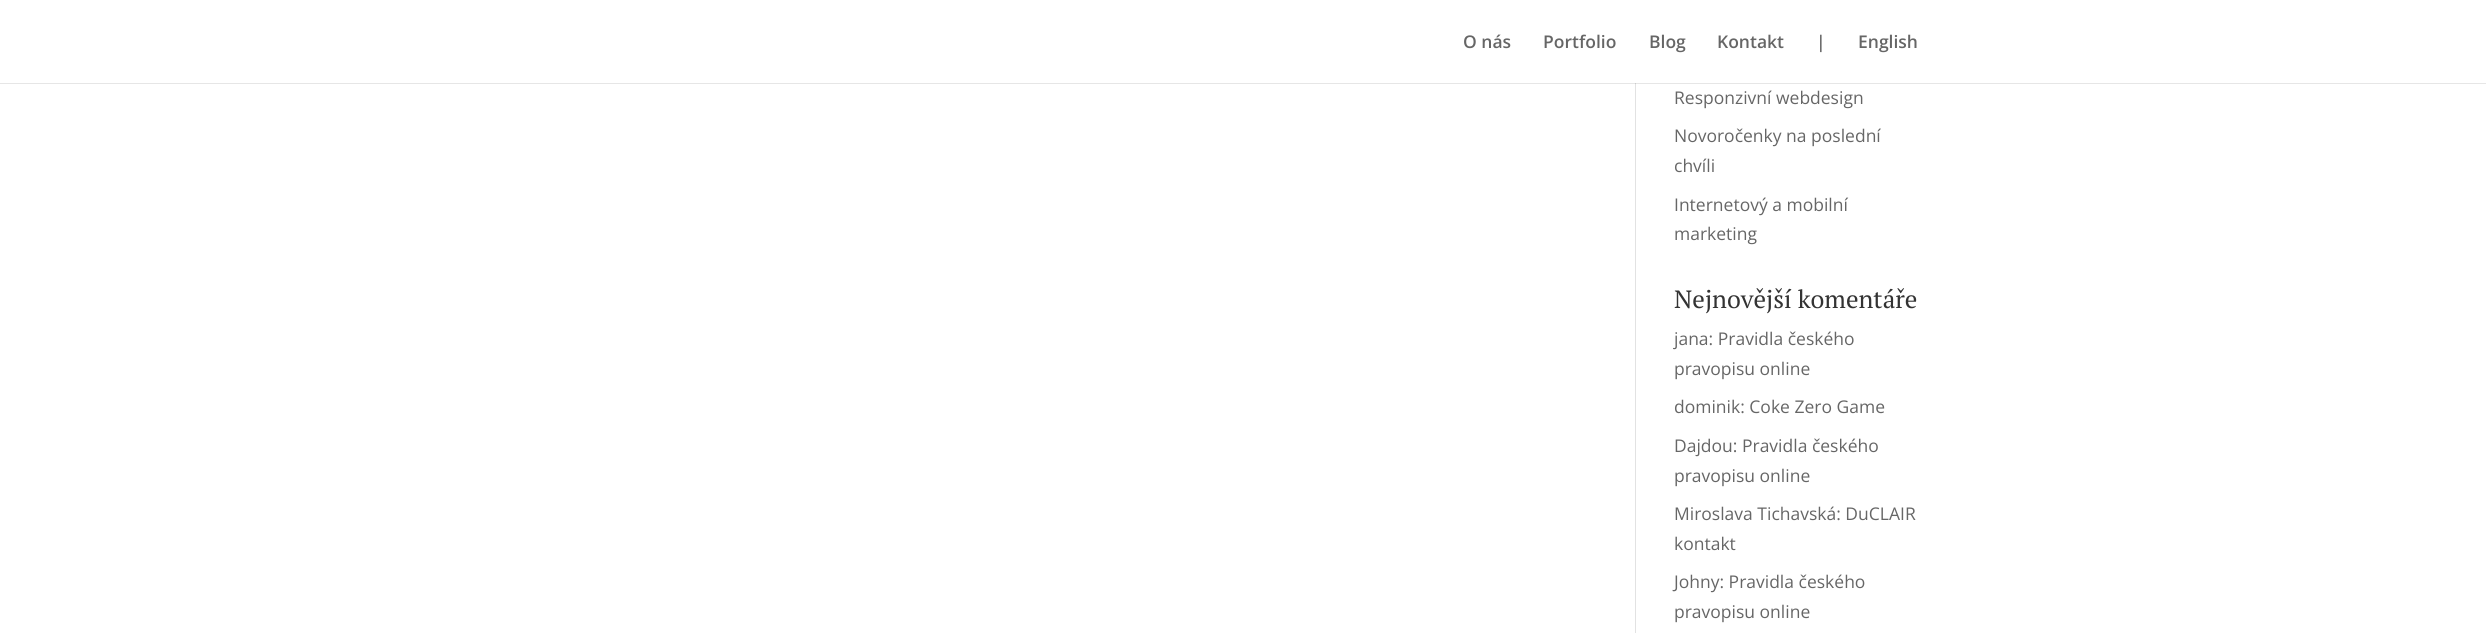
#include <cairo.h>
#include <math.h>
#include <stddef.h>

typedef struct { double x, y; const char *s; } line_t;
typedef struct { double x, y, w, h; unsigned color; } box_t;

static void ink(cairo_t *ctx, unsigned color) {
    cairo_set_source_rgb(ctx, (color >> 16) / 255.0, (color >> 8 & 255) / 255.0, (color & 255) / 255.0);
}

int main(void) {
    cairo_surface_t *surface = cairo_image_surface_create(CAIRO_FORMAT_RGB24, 2486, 633);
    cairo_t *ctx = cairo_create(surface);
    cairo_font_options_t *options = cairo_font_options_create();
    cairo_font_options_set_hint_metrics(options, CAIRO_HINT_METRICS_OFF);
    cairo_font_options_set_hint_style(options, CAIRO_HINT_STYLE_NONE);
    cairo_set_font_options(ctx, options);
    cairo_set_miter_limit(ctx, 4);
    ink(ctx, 0xFFFFFF);
    cairo_paint(ctx);
    {
        static const box_t items[] = {
            {0, 83, 2486, 1, 0xE6E6E6},
            {1635, 82, 1, 2, 0xCBCBCB},
            {1635, 82, 1, 1, 0xFFFFFF},
        };
        for (size_t i = 0; i < sizeof items / sizeof *items; i++) {
            ink(ctx, items[i].color);
            cairo_rectangle(ctx, items[i].x, items[i].y, items[i].w, items[i].h);
            cairo_fill(ctx);
        }
    }
    cairo_select_font_face(ctx, "Open Sans SemiBold", CAIRO_FONT_SLANT_NORMAL, CAIRO_FONT_WEIGHT_NORMAL);
    cairo_set_font_size(ctx, 17.5);
    ink(ctx, 0x666666);
    {
        static const line_t items[] = {
            {1463, 48, "O nás"},
            {1543, 48, "Portfolio"},
            {1649, 48, "Blog"},
            {1717, 48, "Kontakt"},
            {1816, 48, "|"},
            {1858, 48, "English"},
        };
        for (size_t i = 0; i < sizeof items / sizeof *items; i++) {
            cairo_move_to(ctx, items[i].x, items[i].y);
            cairo_show_text(ctx, items[i].s);
        }
    }
    ink(ctx, 0xE2E2E2);
    cairo_rectangle(ctx, 1635, 84, 1, 549);
    cairo_fill(ctx);
    cairo_select_font_face(ctx, "Open Sans", CAIRO_FONT_SLANT_NORMAL, CAIRO_FONT_WEIGHT_NORMAL);
    ink(ctx, 0x666666);
    {
        static const line_t items[] = {
            {1674, 104, "Responzivní webdesign"},
            {1674, 142, "Novoročenky na poslední"},
            {1674, 172, "chvíli"},
            {1674, 211, "Internetový a mobilní"},
            {1674, 240, "marketing"},
        };
        for (size_t i = 0; i < sizeof items / sizeof *items; i++) {
            cairo_move_to(ctx, items[i].x, items[i].y);
            cairo_show_text(ctx, items[i].s);
        }
    }
    cairo_select_font_face(ctx, "PT Serif", CAIRO_FONT_SLANT_NORMAL, CAIRO_FONT_WEIGHT_NORMAL);
    cairo_set_font_size(ctx, 25);
    ink(ctx, 0x333333);
    cairo_move_to(ctx, 1674, 308);
    cairo_show_text(ctx, "Nejnovější komentáře");
    cairo_select_font_face(ctx, "Open Sans", CAIRO_FONT_SLANT_NORMAL, CAIRO_FONT_WEIGHT_NORMAL);
    cairo_set_font_size(ctx, 17.5);
    ink(ctx, 0x666666);
    {
        static const line_t items[] = {
            {1674, 345, "jana: Pravidla českého"},
            {1674, 375, "pravopisu online"},
            {1674, 413, "dominik: Coke Zero Game"},
            {1674, 452, "Dajdou: Pravidla českého"},
            {1674, 482, "pravopisu online"},
            {1674, 520, "Miroslava Tichavská: DuCLAIR"},
            {1674, 550, "kontakt"},
            {1674, 588, "Johny: Pravidla českého"},
            {1674, 618, "pravopisu online"},
        };
        for (size_t i = 0; i < sizeof items / sizeof *items; i++) {
            cairo_move_to(ctx, items[i].x, items[i].y);
            cairo_show_text(ctx, items[i].s);
        }
    }
    cairo_surface_write_to_png(surface, "image.png");
    cairo_font_options_destroy(options);
    cairo_destroy(ctx);
    cairo_surface_destroy(surface);
    return 0;
}
